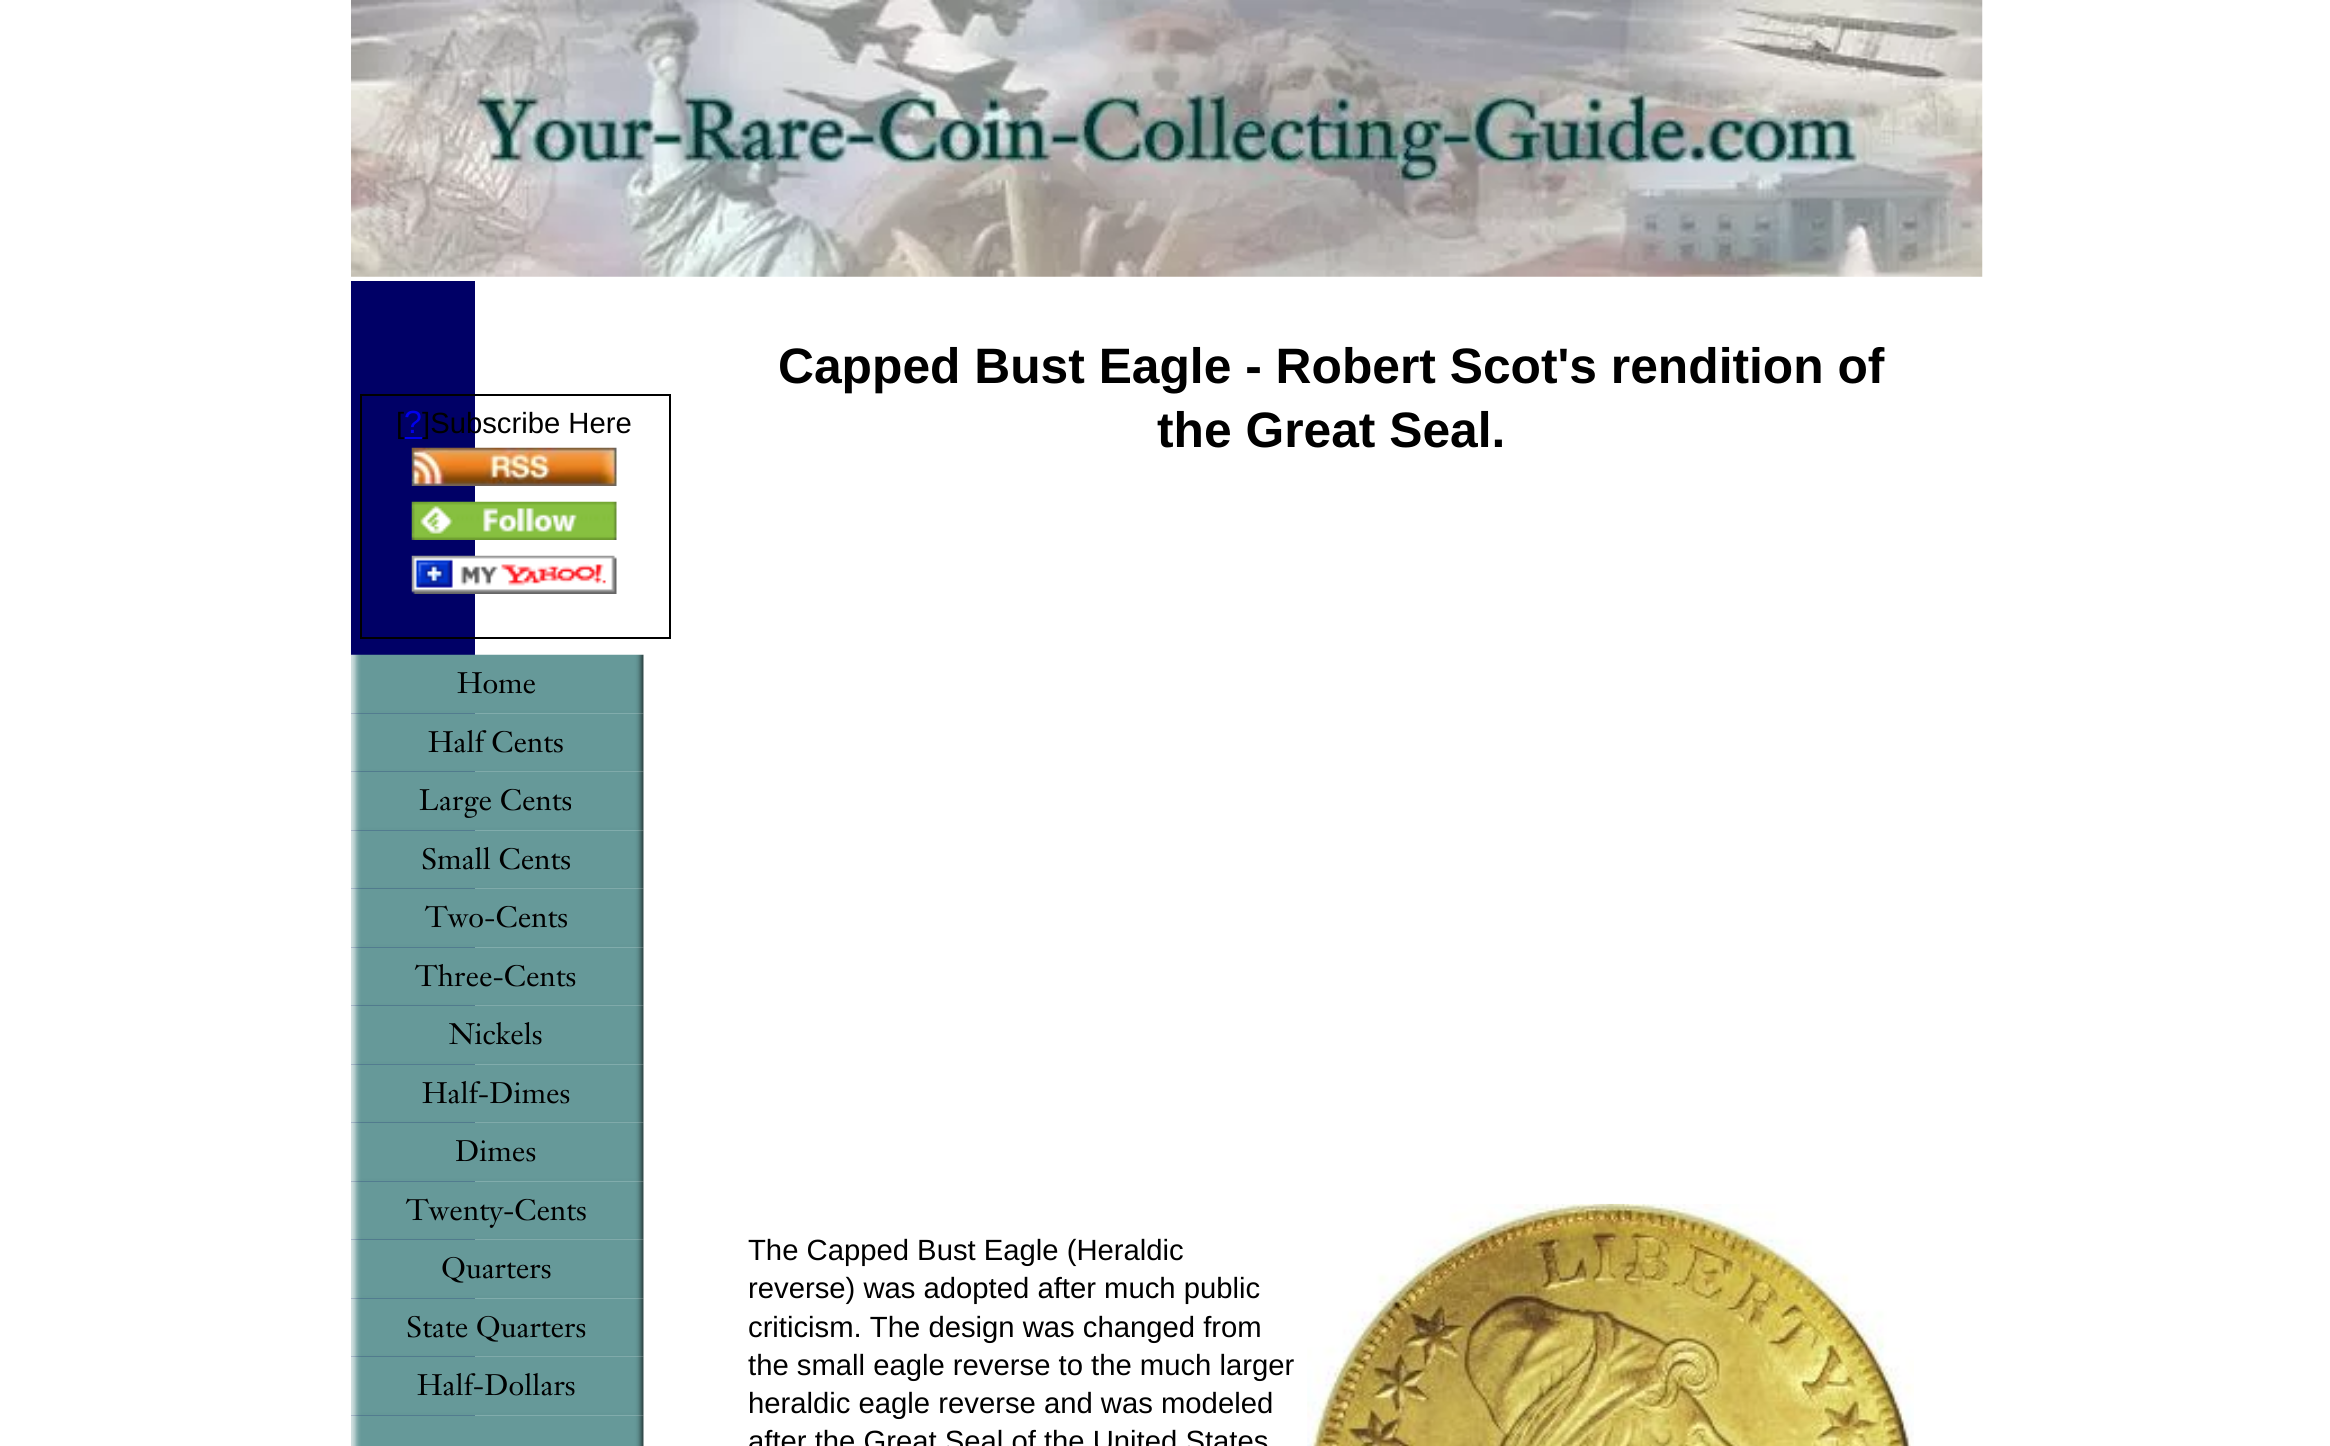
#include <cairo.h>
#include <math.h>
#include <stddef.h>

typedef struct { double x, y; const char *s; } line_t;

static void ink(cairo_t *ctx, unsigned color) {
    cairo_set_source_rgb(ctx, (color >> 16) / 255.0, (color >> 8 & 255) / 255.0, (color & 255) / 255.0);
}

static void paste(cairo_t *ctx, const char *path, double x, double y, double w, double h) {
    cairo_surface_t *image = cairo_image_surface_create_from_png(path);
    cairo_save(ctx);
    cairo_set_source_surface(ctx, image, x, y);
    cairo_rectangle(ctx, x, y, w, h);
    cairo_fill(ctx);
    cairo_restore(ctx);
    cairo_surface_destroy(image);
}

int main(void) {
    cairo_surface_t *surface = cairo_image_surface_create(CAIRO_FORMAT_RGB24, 2330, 1446);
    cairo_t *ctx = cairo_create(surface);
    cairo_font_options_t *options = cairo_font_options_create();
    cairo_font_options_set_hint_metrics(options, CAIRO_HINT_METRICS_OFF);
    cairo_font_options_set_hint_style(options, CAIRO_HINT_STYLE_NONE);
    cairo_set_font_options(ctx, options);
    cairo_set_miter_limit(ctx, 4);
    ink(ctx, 0xFFFFFF);
    cairo_paint(ctx);
    paste(ctx, "media/1.png", 351, 0, 1632, 277);
    ink(ctx, 0x000066);
    cairo_rectangle(ctx, 351, 281, 124, 1135);
    cairo_fill(ctx);
    cairo_rectangle(ctx, 361, 395, 309, 243);
    ink(ctx, 0x000000);
    cairo_stroke(ctx);
    cairo_select_font_face(ctx, "Liberation Sans", CAIRO_FONT_SLANT_NORMAL, CAIRO_FONT_WEIGHT_NORMAL);
    cairo_set_font_size(ctx, 29.25);
    cairo_move_to(ctx, 396, 433);
    cairo_show_text(ctx, "[");
    cairo_set_font_size(ctx, 32);
    ink(ctx, 0x0000EE);
    cairo_move_to(ctx, 404, 433);
    cairo_show_text(ctx, "?");
    cairo_rectangle(ctx, 405, 437, 18, 2);
    cairo_fill(ctx);
    cairo_set_font_size(ctx, 29.25);
    ink(ctx, 0x000000);
    cairo_move_to(ctx, 422, 433);
    cairo_show_text(ctx, "]Subscribe Here");
    paste(ctx, "media/2.png", 411, 447, 206, 39);
    paste(ctx, "media/3.png", 411, 501, 206, 39);
    paste(ctx, "media/4.png", 411, 555, 206, 39);
    paste(ctx, "media/5.png", 351, 654, 293, 60);
    cairo_select_font_face(ctx, "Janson", CAIRO_FONT_SLANT_NORMAL, CAIRO_FONT_WEIGHT_NORMAL);
    cairo_move_to(ctx, 457, 693);
    cairo_show_text(ctx, "Home");
    paste(ctx, "media/6.png", 351, 713, 293, 59);
    cairo_move_to(ctx, 428, 752);
    cairo_show_text(ctx, "Half Cents");
    paste(ctx, "media/7.png", 351, 771, 293, 60);
    cairo_move_to(ctx, 419, 810);
    cairo_show_text(ctx, "Large Cents");
    paste(ctx, "media/8.png", 351, 830, 293, 59);
    cairo_move_to(ctx, 421, 869);
    cairo_show_text(ctx, "Small Cents");
    paste(ctx, "media/7.png", 351, 888, 293, 60);
    cairo_move_to(ctx, 425, 927);
    cairo_show_text(ctx, "Two-Cents");
    paste(ctx, "media/6.png", 351, 947, 293, 59);
    cairo_move_to(ctx, 415, 986);
    cairo_show_text(ctx, "Three-Cents");
    paste(ctx, "media/7.png", 351, 1005, 293, 60);
    cairo_move_to(ctx, 449, 1044);
    cairo_show_text(ctx, "Nickels");
    paste(ctx, "media/6.png", 351, 1064, 293, 59);
    cairo_move_to(ctx, 422, 1103);
    cairo_show_text(ctx, "Half-Dimes");
    paste(ctx, "media/7.png", 351, 1122, 293, 60);
    cairo_move_to(ctx, 455, 1161);
    cairo_show_text(ctx, "Dimes");
    paste(ctx, "media/6.png", 351, 1181, 293, 59);
    cairo_move_to(ctx, 406, 1220);
    cairo_show_text(ctx, "Twenty-Cents");
    paste(ctx, "media/7.png", 351, 1239, 293, 60);
    cairo_move_to(ctx, 441, 1278);
    cairo_show_text(ctx, "Quarters");
    paste(ctx, "media/6.png", 351, 1298, 293, 59);
    cairo_move_to(ctx, 406, 1337);
    cairo_show_text(ctx, "State Quarters");
    paste(ctx, "media/7.png", 351, 1356, 293, 60);
    cairo_move_to(ctx, 417, 1395);
    cairo_show_text(ctx, "Half-Dollars");
    paste(ctx, "media/9.png", 351, 1415, 293, 31);
    cairo_select_font_face(ctx, "Liberation Sans", CAIRO_FONT_SLANT_NORMAL, CAIRO_FONT_WEIGHT_BOLD);
    cairo_set_font_size(ctx, 49.75);
    cairo_move_to(ctx, 778, 383);
    cairo_show_text(ctx, "Capped Bust Eagle - Robert Scot's rendition of");
    cairo_move_to(ctx, 1157, 447);
    cairo_show_text(ctx, "the Great Seal.");
    cairo_select_font_face(ctx, "Liberation Sans", CAIRO_FONT_SLANT_NORMAL, CAIRO_FONT_WEIGHT_NORMAL);
    cairo_set_font_size(ctx, 29.25);
    {
        static const line_t items[] = {
            {748, 1260, "The Capped Bust Eagle (Heraldic"},
            {748, 1298, "reverse) was adopted after much public"},
            {748, 1337, "criticism. The design was changed from"},
            {748, 1375, "the small eagle reverse to the much larger"},
            {748, 1413, "heraldic eagle reverse and was modeled"},
            {748, 1451, "after the Great Seal of the United States"},
        };
        for (size_t i = 0; i < sizeof items / sizeof *items; i++) {
            cairo_move_to(ctx, items[i].x, items[i].y);
            cairo_show_text(ctx, items[i].s);
        }
    }
    paste(ctx, "media/10.png", 1307, 1203, 607, 243);
    cairo_surface_write_to_png(surface, "image.png");
    cairo_font_options_destroy(options);
    cairo_destroy(ctx);
    cairo_surface_destroy(surface);
    return 0;
}
